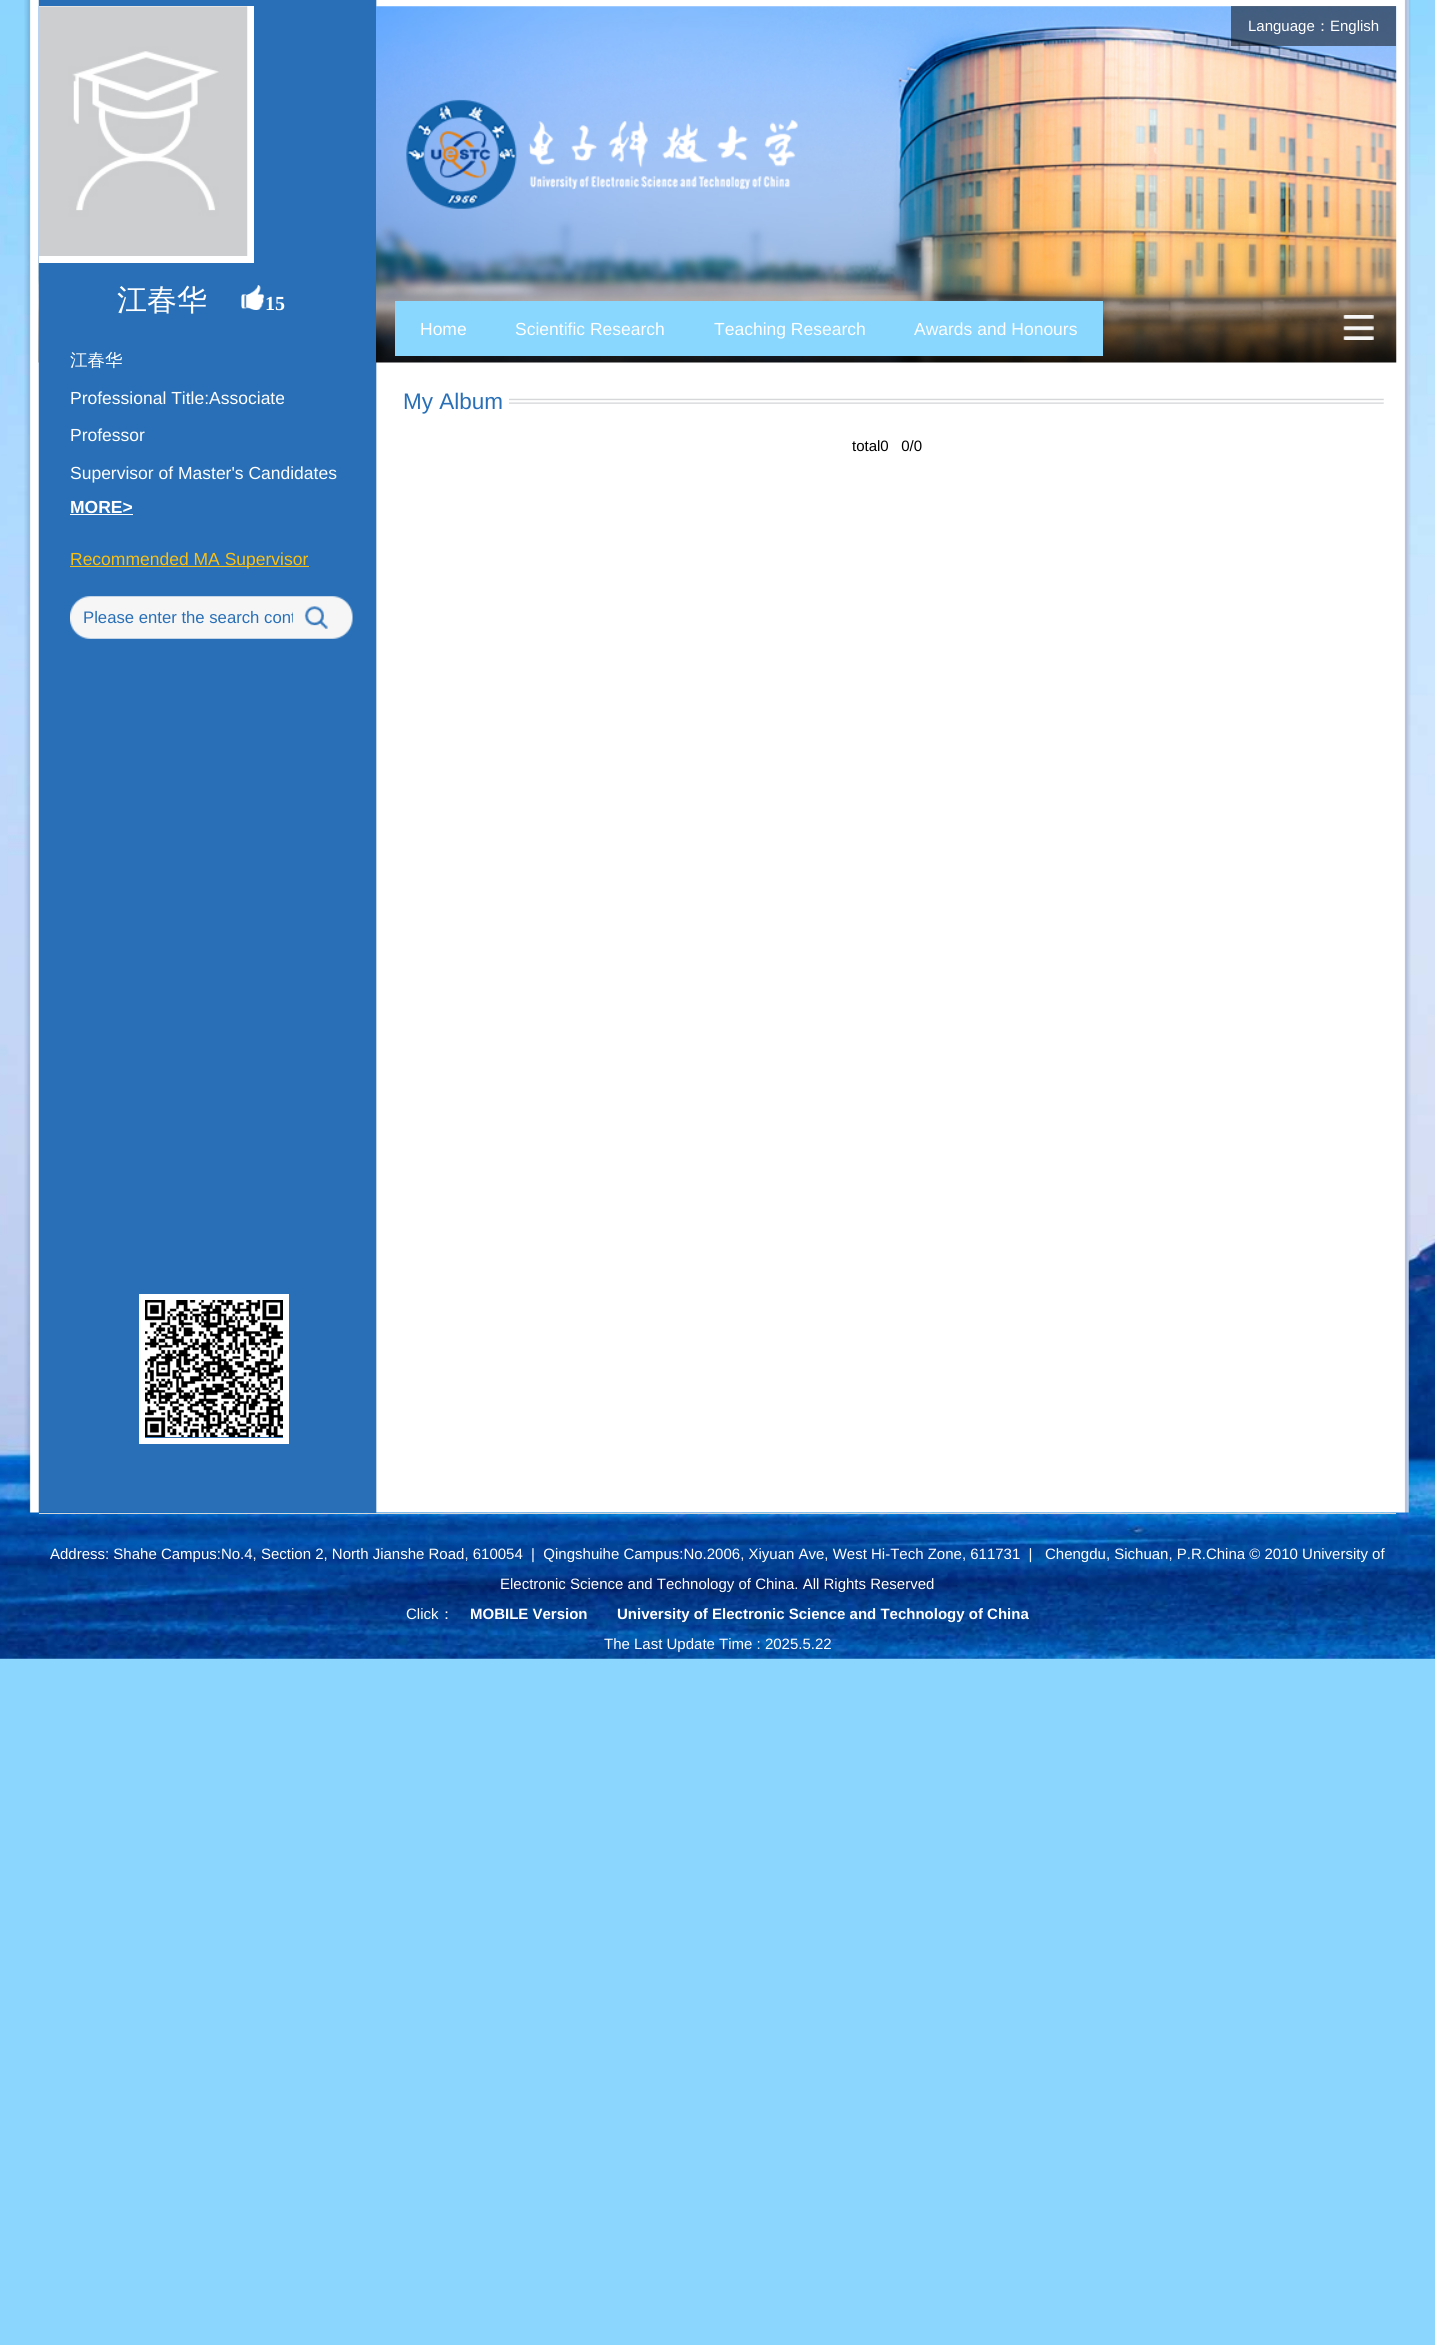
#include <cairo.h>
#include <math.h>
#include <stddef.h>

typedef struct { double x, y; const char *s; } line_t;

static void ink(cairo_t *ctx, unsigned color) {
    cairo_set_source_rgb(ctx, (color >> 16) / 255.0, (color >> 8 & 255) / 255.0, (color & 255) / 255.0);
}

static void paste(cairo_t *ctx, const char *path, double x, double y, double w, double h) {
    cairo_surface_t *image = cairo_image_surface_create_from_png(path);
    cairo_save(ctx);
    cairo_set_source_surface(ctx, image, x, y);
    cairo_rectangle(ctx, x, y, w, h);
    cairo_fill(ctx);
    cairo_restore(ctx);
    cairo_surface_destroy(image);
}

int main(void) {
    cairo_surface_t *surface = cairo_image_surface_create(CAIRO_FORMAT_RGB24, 1435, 2345);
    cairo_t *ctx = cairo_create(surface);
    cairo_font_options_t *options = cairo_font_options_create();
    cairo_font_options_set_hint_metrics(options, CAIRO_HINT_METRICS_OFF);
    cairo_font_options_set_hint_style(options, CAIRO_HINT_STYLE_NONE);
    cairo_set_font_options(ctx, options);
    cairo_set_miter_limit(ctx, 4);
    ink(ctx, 0x8BD6FE);
    cairo_paint(ctx);
    paste(ctx, "media/1.png", 0, 0, 1435, 1659);
    paste(ctx, "media/2.png", 24, 0, 1387, 1513);
    paste(ctx, "media/3.png", 38, 6, 1359, 357);
    ink(ctx, 0x286FB7);
    cairo_rectangle(ctx, 39, 6, 337, 357);
    cairo_fill(ctx);
    ink(ctx, 0xFFFFFF);
    cairo_rectangle(ctx, 39, 6, 215, 257);
    cairo_fill(ctx);
    paste(ctx, "media/4.png", 39, 6, 209, 250);
    cairo_select_font_face(ctx, "WenQuanYi Zen Hei Medium", CAIRO_FONT_SLANT_NORMAL, CAIRO_FONT_WEIGHT_NORMAL);
    cairo_set_font_size(ctx, 30);
    cairo_move_to(ctx, 117, 310);
    cairo_show_text(ctx, "江春华");
    paste(ctx, "media/5.png", 241, 285, 24, 25);
    cairo_select_font_face(ctx, "Liberation Serif", CAIRO_FONT_SLANT_NORMAL, CAIRO_FONT_WEIGHT_BOLD);
    cairo_set_font_size(ctx, 20);
    cairo_move_to(ctx, 265, 310);
    cairo_show_text(ctx, "15");
    cairo_select_font_face(ctx, "WenQuanYi Zen Hei Medium", CAIRO_FONT_SLANT_NORMAL, CAIRO_FONT_WEIGHT_NORMAL);
    cairo_set_font_size(ctx, 17.5);
    cairo_move_to(ctx, 70, 366);
    cairo_show_text(ctx, "江春华");
    cairo_select_font_face(ctx, "Liberation Sans", CAIRO_FONT_SLANT_NORMAL, CAIRO_FONT_WEIGHT_NORMAL);
    {
        static const line_t items[] = {
            {70, 404, "Professional Title:Associate"},
            {70, 441, "Professor"},
            {70, 479, "Supervisor of Master's Candidates"},
        };
        for (size_t i = 0; i < sizeof items / sizeof *items; i++) {
            cairo_move_to(ctx, items[i].x, items[i].y);
            cairo_show_text(ctx, items[i].s);
        }
    }
    cairo_select_font_face(ctx, "Liberation Sans", CAIRO_FONT_SLANT_NORMAL, CAIRO_FONT_WEIGHT_BOLD);
    cairo_move_to(ctx, 70, 513);
    cairo_show_text(ctx, "MORE>");
    cairo_rectangle(ctx, 70, 514, 63, 1);
    cairo_fill(ctx);
    ink(ctx, 0xF8C015);
    cairo_rectangle(ctx, 70, 566, 239, 1);
    cairo_fill(ctx);
    cairo_select_font_face(ctx, "Liberation Sans", CAIRO_FONT_SLANT_NORMAL, CAIRO_FONT_WEIGHT_NORMAL);
    cairo_move_to(ctx, 70, 565);
    cairo_show_text(ctx, "Recommended MA Supervisor");
    paste(ctx, "media/6.png", 70, 596, 283, 43);
    cairo_save(ctx);
    cairo_rectangle(ctx, 83, 608, 210, 20);
    cairo_clip(ctx);
    cairo_set_font_size(ctx, 16.7);
    ink(ctx, 0x286FB7);
    cairo_move_to(ctx, 83, 623);
    cairo_show_text(ctx, "Please enter the search cont");
    cairo_restore(ctx);
    paste(ctx, "media/7.png", 304, 606, 24, 23);
    cairo_rectangle(ctx, 142, 1297, 144, 144);
    ink(ctx, 0xFFFFFF);
    cairo_set_line_width(ctx, 6);
    cairo_stroke(ctx);
    paste(ctx, "media/8.png", 145, 1300, 138, 137);
    cairo_set_source_rgba(ctx, 0, 0, 0, 0.5);
    cairo_rectangle(ctx, 1231, 6, 165, 40);
    cairo_fill(ctx);
    cairo_set_font_size(ctx, 15);
    ink(ctx, 0xFFFFFF);
    cairo_move_to(ctx, 1248, 31);
    cairo_show_text(ctx, "Language");
    cairo_select_font_face(ctx, "WenQuanYi Zen Hei Medium", CAIRO_FONT_SLANT_NORMAL, CAIRO_FONT_WEIGHT_NORMAL);
    cairo_move_to(ctx, 1315, 31);
    cairo_show_text(ctx, "：");
    cairo_select_font_face(ctx, "Liberation Sans", CAIRO_FONT_SLANT_NORMAL, CAIRO_FONT_WEIGHT_NORMAL);
    cairo_move_to(ctx, 1330, 31);
    cairo_show_text(ctx, "English");
    paste(ctx, "media/9.png", 406, 99, 392, 110);
    ink(ctx, 0x89D6FE);
    cairo_rectangle(ctx, 395, 301, 708, 55);
    cairo_fill(ctx);
    cairo_set_font_size(ctx, 17.5);
    ink(ctx, 0xFFFFFF);
    {
        static const line_t items[] = {
            {420, 335, "Home"},
            {515, 335, "Scientific Research"},
            {714, 335, "Teaching Research"},
            {914, 335, "Awards and Honours"},
        };
        for (size_t i = 0; i < sizeof items / sizeof *items; i++) {
            cairo_move_to(ctx, items[i].x, items[i].y);
            cairo_show_text(ctx, items[i].s);
        }
    }
    paste(ctx, "media/10.png", 1343, 315, 31, 25);
    paste(ctx, "media/11.png", 509, 398, 875, 6);
    cairo_set_font_size(ctx, 22.5);
    ink(ctx, 0x286FB7);
    cairo_move_to(ctx, 403, 409);
    cairo_show_text(ctx, "My Album");
    cairo_set_font_size(ctx, 15);
    ink(ctx, 0x000000);
    cairo_move_to(ctx, 852, 451);
    cairo_show_text(ctx, "total0   0/0");
    ink(ctx, 0xD4D5D7);
    cairo_rectangle(ctx, 39, 1513, 1357, 1);
    cairo_fill(ctx);
    ink(ctx, 0xFFFFFF);
    {
        static const line_t items[] = {
            {50, 1559, "Address: Shahe Campus:No.4, Section 2, North Jianshe Road, 610054  |  Qingshuihe Campus:No.2006, Xiyuan Ave, West Hi-Tech Zone, 611731  |   Chengdu, Sichuan, P.R.China © 2010 University of"},
            {500, 1589, "Electronic Science and Technology of China. All Rights Reserved"},
            {406, 1619, "Click"},
        };
        for (size_t i = 0; i < sizeof items / sizeof *items; i++) {
            cairo_move_to(ctx, items[i].x, items[i].y);
            cairo_show_text(ctx, items[i].s);
        }
    }
    cairo_select_font_face(ctx, "WenQuanYi Zen Hei Medium", CAIRO_FONT_SLANT_NORMAL, CAIRO_FONT_WEIGHT_NORMAL);
    cairo_move_to(ctx, 439, 1619);
    cairo_show_text(ctx, "：");
    cairo_select_font_face(ctx, "Liberation Sans", CAIRO_FONT_SLANT_NORMAL, CAIRO_FONT_WEIGHT_BOLD);
    cairo_move_to(ctx, 470, 1619);
    cairo_show_text(ctx, "MOBILE Version");
    cairo_move_to(ctx, 617, 1619);
    cairo_show_text(ctx, "University of Electronic Science and Technology of China");
    cairo_select_font_face(ctx, "Liberation Sans", CAIRO_FONT_SLANT_NORMAL, CAIRO_FONT_WEIGHT_NORMAL);
    cairo_move_to(ctx, 604, 1649);
    cairo_show_text(ctx, "The Last Update Time : 2025.5.22");
    cairo_surface_write_to_png(surface, "image.png");
    cairo_font_options_destroy(options);
    cairo_destroy(ctx);
    cairo_surface_destroy(surface);
    return 0;
}
